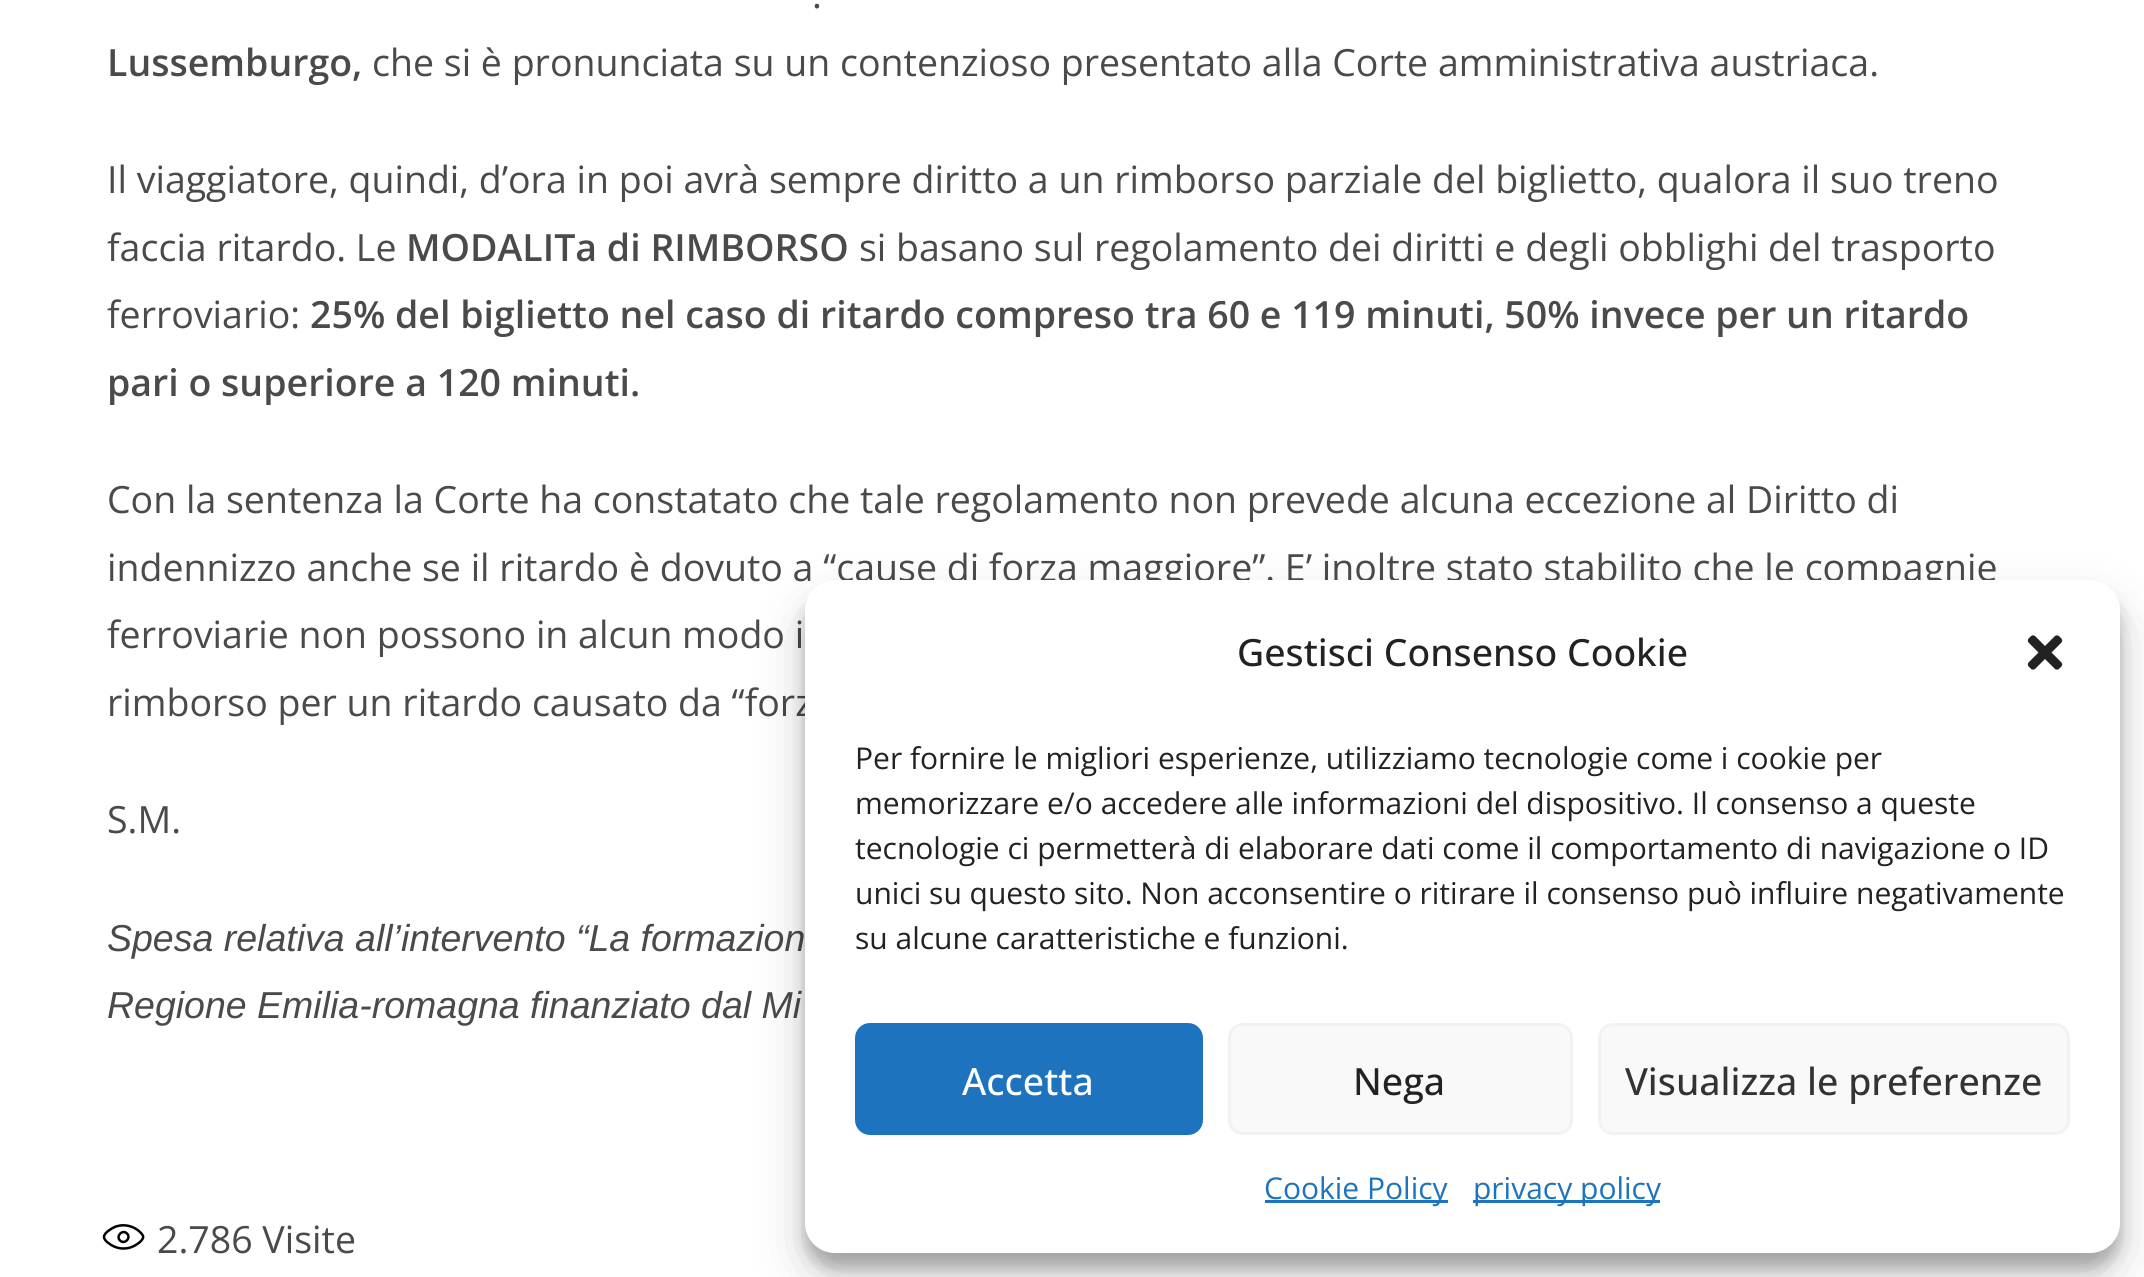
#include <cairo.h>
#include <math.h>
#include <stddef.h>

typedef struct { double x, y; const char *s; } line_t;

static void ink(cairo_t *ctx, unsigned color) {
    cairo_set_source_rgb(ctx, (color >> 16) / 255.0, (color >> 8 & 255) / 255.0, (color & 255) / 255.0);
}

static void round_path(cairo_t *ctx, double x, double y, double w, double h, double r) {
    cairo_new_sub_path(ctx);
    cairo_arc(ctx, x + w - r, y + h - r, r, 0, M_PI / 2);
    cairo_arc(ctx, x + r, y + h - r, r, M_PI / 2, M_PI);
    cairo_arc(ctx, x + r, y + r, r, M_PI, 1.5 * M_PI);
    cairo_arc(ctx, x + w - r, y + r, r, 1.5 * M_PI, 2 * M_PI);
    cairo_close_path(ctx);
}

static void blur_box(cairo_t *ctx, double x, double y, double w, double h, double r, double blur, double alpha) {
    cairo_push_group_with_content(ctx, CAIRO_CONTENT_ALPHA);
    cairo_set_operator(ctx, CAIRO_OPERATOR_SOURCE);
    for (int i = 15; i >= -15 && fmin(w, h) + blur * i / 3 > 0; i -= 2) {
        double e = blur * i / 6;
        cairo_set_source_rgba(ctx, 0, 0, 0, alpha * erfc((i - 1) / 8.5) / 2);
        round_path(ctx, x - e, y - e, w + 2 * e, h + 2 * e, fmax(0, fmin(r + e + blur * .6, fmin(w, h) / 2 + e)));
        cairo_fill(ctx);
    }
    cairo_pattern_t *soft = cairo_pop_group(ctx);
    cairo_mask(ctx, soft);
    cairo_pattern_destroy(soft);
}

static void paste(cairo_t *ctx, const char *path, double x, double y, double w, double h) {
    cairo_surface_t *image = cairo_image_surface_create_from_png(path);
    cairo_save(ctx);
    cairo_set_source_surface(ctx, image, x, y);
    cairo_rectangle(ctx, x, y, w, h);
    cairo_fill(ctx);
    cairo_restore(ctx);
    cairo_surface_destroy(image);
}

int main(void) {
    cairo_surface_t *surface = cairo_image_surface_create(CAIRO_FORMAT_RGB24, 2144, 1277);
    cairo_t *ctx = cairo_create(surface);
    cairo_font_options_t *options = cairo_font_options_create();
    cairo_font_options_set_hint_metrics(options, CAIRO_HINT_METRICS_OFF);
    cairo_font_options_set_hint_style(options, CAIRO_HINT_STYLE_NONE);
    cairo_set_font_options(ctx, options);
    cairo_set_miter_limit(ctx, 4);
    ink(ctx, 0xFFFFFF);
    cairo_paint(ctx);
    cairo_select_font_face(ctx, "Open Sans", CAIRO_FONT_SLANT_NORMAL, CAIRO_FONT_WEIGHT_NORMAL);
    cairo_set_font_size(ctx, 37.5);
    ink(ctx, 0x4A4A4A);
    cairo_move_to(ctx, 812, 8);
    cairo_show_text(ctx, ".");
    cairo_select_font_face(ctx, "Open Sans SemiBold", CAIRO_FONT_SLANT_NORMAL, CAIRO_FONT_WEIGHT_NORMAL);
    cairo_move_to(ctx, 107, 76);
    cairo_show_text(ctx, "Lussemburgo,");
    cairo_select_font_face(ctx, "Open Sans", CAIRO_FONT_SLANT_NORMAL, CAIRO_FONT_WEIGHT_NORMAL);
    {
        static const line_t items[] = {
            {372, 76, "che si è pronunciata su un contenzioso presentato alla Corte amministrativa austriaca."},
            {107, 193, "Il viaggiatore, quindi, d’ora in poi avrà sempre diritto a un rimborso parziale del biglietto, qualora il suo treno"},
            {107, 261, "faccia ritardo. Le"},
        };
        for (size_t i = 0; i < sizeof items / sizeof *items; i++) {
            cairo_move_to(ctx, items[i].x, items[i].y);
            cairo_show_text(ctx, items[i].s);
        }
    }
    cairo_select_font_face(ctx, "Open Sans SemiBold", CAIRO_FONT_SLANT_NORMAL, CAIRO_FONT_WEIGHT_NORMAL);
    cairo_move_to(ctx, 406, 261);
    cairo_show_text(ctx, "MODALITa di RIMBORSO");
    cairo_select_font_face(ctx, "Open Sans", CAIRO_FONT_SLANT_NORMAL, CAIRO_FONT_WEIGHT_NORMAL);
    cairo_move_to(ctx, 859, 261);
    cairo_show_text(ctx, "si basano sul regolamento dei diritti e degli obblighi del trasporto");
    cairo_move_to(ctx, 107, 328);
    cairo_show_text(ctx, "ferroviario:");
    cairo_select_font_face(ctx, "Open Sans SemiBold", CAIRO_FONT_SLANT_NORMAL, CAIRO_FONT_WEIGHT_NORMAL);
    cairo_move_to(ctx, 310, 328);
    cairo_show_text(ctx, "25% del biglietto nel caso di ritardo compreso tra 60 e 119 minuti, 50% invece per un ritardo");
    cairo_move_to(ctx, 107, 396);
    cairo_show_text(ctx, "pari o superiore a 120 minuti.");
    cairo_select_font_face(ctx, "Open Sans", CAIRO_FONT_SLANT_NORMAL, CAIRO_FONT_WEIGHT_NORMAL);
    {
        static const line_t items[] = {
            {107, 513, "Con la sentenza la Corte ha constatato che tale regolamento non prevede alcuna eccezione al Diritto di"},
            {107, 581, "indennizzo anche se il ritardo è dovuto a “cause di forza maggiore”. E’ inoltre stato stabilito che le compagnie"},
            {107, 648, "ferroviarie non possono in alcun modo i"},
            {107, 716, "rimborso per un ritardo causato da “forz"},
            {107, 833, "S.M."},
        };
        for (size_t i = 0; i < sizeof items / sizeof *items; i++) {
            cairo_move_to(ctx, items[i].x, items[i].y);
            cairo_show_text(ctx, items[i].s);
        }
    }
    cairo_select_font_face(ctx, "Liberation Sans", CAIRO_FONT_SLANT_ITALIC, CAIRO_FONT_WEIGHT_NORMAL);
    cairo_move_to(ctx, 107, 951);
    cairo_show_text(ctx, "Spesa relativa all’intervento “La formazion");
    cairo_move_to(ctx, 107, 1018);
    cairo_show_text(ctx, "Regione Emilia-romagna finanziato dal Mi");
    cairo_new_path(ctx);
    cairo_move_to(ctx, 140, 1232);
    cairo_curve_to(ctx, 144, 1236, 144.5, 1237.5, 140, 1242);
    cairo_curve_to(ctx, 135, 1246, 130, 1248.5, 123.5, 1248.5);
    cairo_curve_to(ctx, 117, 1248.5, 112, 1246, 107, 1242);
    cairo_curve_to(ctx, 101, 1236.5, 105, 1233, 111, 1229);
    cairo_curve_to(ctx, 120, 1223, 132, 1224.5, 140, 1232);
    cairo_close_path(ctx);
    cairo_move_to(ctx, 127, 1233.5);
    cairo_curve_to(ctx, 131.5, 1238, 124.5, 1245, 120, 1240.5);
    cairo_curve_to(ctx, 115.5, 1236, 122.5, 1229, 127, 1233.5);
    cairo_close_path(ctx);
    ink(ctx, 0x000000);
    cairo_set_line_width(ctx, 2.5);
    cairo_stroke(ctx);
    cairo_select_font_face(ctx, "Open Sans", CAIRO_FONT_SLANT_NORMAL, CAIRO_FONT_WEIGHT_NORMAL);
    ink(ctx, 0x4A4A4A);
    cairo_move_to(ctx, 157, 1253);
    cairo_show_text(ctx, "2.786 Visite");
    ink(ctx, 0x000000);
    blur_box(ctx, 805, 595, 1315, 673, 30, 7.5, 0.23);
    blur_box(ctx, 805, 605, 1315, 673, 30, 25, 0.19);
    ink(ctx, 0xFFFFFF);
    round_path(ctx, 805, 580, 1315, 673, 30);
    cairo_fill(ctx);
    cairo_select_font_face(ctx, "Open Sans Medium", CAIRO_FONT_SLANT_NORMAL, CAIRO_FONT_WEIGHT_NORMAL);
    ink(ctx, 0x222222);
    cairo_move_to(ctx, 1237, 666);
    cairo_show_text(ctx, "Gestisci Consenso Cookie");
    paste(ctx, "media/1.png", 2027, 635, 36, 35);
    cairo_select_font_face(ctx, "Open Sans", CAIRO_FONT_SLANT_NORMAL, CAIRO_FONT_WEIGHT_NORMAL);
    cairo_set_font_size(ctx, 30);
    {
        static const line_t items[] = {
            {855, 769, "Per fornire le migliori esperienze, utilizziamo tecnologie come i cookie per"},
            {855, 814, "memorizzare e/o accedere alle informazioni del dispositivo. Il consenso a queste"},
            {855, 859, "tecnologie ci permetterà di elaborare dati come il comportamento di navigazione o ID"},
            {855, 904, "unici su questo sito. Non acconsentire o ritirare il consenso può influire negativamente"},
            {855, 949, "su alcune caratteristiche e funzioni."},
        };
        for (size_t i = 0; i < sizeof items / sizeof *items; i++) {
            cairo_move_to(ctx, items[i].x, items[i].y);
            cairo_show_text(ctx, items[i].s);
        }
    }
    ink(ctx, 0x1E73BE);
    round_path(ctx, 856.5, 1024.5, 345, 109, 13.5);
    cairo_fill_preserve(ctx);
    cairo_set_line_width(ctx, 3);
    cairo_stroke(ctx);
    cairo_select_font_face(ctx, "Open Sans Medium", CAIRO_FONT_SLANT_NORMAL, CAIRO_FONT_WEIGHT_NORMAL);
    cairo_set_font_size(ctx, 37.5);
    ink(ctx, 0xFFFFFF);
    cairo_move_to(ctx, 962, 1095);
    cairo_show_text(ctx, "Accetta");
    ink(ctx, 0xF9F9F9);
    round_path(ctx, 1229.5, 1024.5, 342, 109, 13.5);
    cairo_fill_preserve(ctx);
    ink(ctx, 0xF2F2F2);
    cairo_stroke(ctx);
    ink(ctx, 0x222222);
    cairo_move_to(ctx, 1353, 1095);
    cairo_show_text(ctx, "Nega");
    ink(ctx, 0xF9F9F9);
    round_path(ctx, 1599.5, 1024.5, 469, 109, 13.5);
    cairo_fill_preserve(ctx);
    ink(ctx, 0xF2F2F2);
    cairo_stroke(ctx);
    ink(ctx, 0x333333);
    cairo_move_to(ctx, 1625, 1095);
    cairo_show_text(ctx, "Visualizza le preferenze");
    ink(ctx, 0x1E73BE);
    cairo_rectangle(ctx, 1265, 1200, 183, 3);
    cairo_fill(ctx);
    cairo_select_font_face(ctx, "Open Sans", CAIRO_FONT_SLANT_NORMAL, CAIRO_FONT_WEIGHT_NORMAL);
    cairo_set_font_size(ctx, 30);
    cairo_move_to(ctx, 1264, 1199);
    cairo_show_text(ctx, "Cookie Policy");
    cairo_rectangle(ctx, 1473, 1200, 187, 3);
    cairo_fill(ctx);
    cairo_move_to(ctx, 1473, 1199);
    cairo_show_text(ctx, "privacy policy");
    cairo_surface_write_to_png(surface, "image.png");
    cairo_font_options_destroy(options);
    cairo_destroy(ctx);
    cairo_surface_destroy(surface);
    return 0;
}
